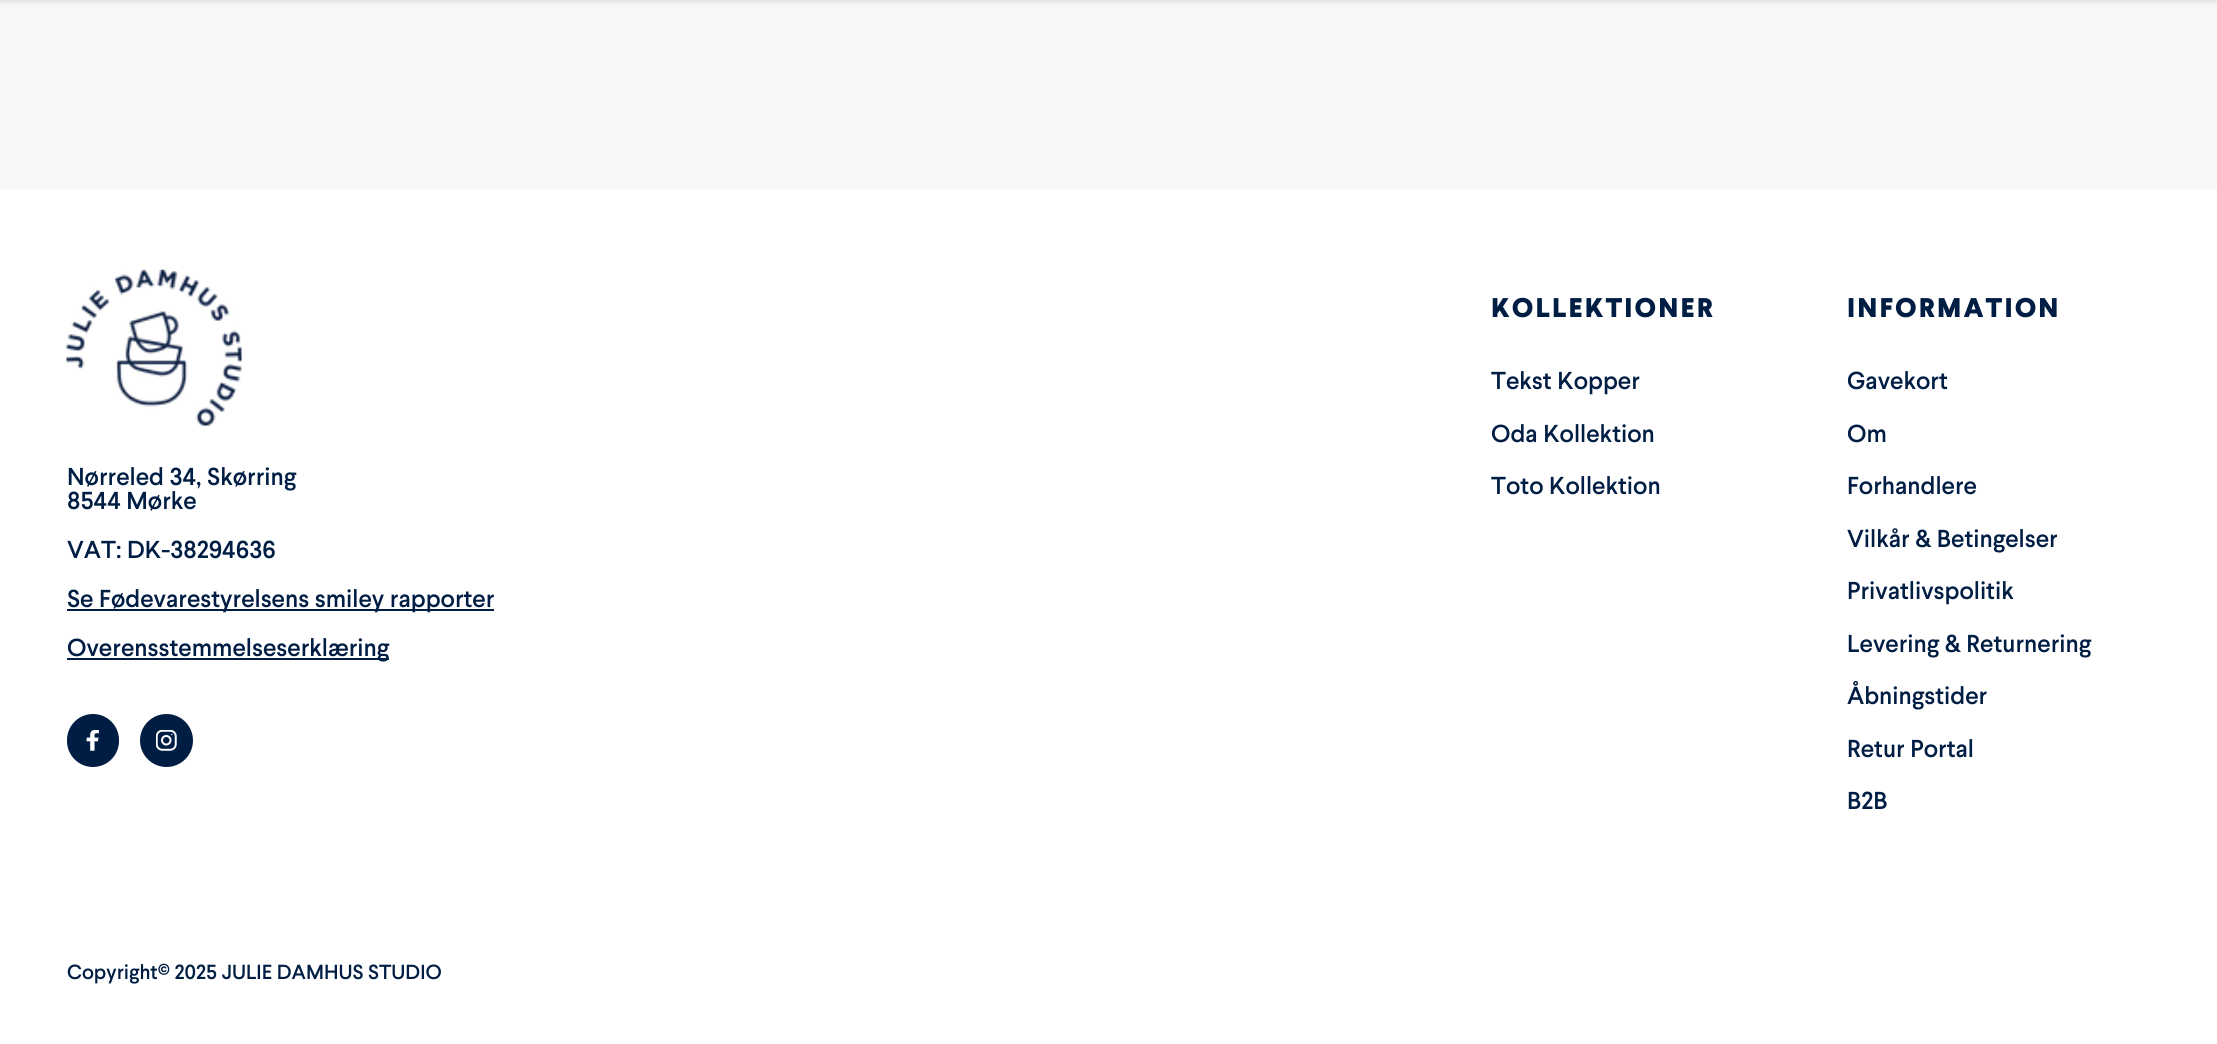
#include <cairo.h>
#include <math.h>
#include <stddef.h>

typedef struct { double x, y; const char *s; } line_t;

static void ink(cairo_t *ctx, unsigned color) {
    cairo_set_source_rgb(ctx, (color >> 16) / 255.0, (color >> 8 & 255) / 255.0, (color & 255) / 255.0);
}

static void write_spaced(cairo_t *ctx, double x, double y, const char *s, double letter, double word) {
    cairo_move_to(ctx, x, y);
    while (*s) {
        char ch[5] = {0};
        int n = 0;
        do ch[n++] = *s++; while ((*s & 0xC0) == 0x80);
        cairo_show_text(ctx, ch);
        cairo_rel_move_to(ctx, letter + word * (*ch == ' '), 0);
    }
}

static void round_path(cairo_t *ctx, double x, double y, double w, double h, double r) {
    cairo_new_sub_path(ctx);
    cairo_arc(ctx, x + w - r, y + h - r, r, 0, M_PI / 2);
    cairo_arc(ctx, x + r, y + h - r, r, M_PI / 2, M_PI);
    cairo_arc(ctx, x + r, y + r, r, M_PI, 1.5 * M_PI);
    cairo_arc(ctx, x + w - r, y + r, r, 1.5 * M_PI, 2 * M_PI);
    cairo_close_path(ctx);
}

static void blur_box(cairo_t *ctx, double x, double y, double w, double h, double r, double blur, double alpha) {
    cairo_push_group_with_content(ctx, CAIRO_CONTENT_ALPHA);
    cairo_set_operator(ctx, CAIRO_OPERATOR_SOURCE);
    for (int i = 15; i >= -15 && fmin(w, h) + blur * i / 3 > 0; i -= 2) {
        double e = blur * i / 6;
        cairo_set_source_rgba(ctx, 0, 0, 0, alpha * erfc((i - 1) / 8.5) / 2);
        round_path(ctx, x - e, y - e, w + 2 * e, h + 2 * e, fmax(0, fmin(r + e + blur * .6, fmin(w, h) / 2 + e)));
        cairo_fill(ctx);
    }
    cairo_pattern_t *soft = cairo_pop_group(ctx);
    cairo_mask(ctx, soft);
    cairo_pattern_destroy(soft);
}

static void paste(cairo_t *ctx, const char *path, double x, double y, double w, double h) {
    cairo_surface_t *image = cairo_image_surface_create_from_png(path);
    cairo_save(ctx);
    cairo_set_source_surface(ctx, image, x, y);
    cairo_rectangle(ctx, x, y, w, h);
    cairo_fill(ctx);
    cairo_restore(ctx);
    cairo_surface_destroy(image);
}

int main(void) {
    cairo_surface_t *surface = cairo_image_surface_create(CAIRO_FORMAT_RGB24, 2217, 1044);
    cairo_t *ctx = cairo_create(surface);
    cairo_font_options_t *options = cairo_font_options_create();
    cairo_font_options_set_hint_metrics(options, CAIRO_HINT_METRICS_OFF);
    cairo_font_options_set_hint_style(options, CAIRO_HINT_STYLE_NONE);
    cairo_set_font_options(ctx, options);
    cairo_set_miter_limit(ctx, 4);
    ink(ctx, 0xF7F7F5);
    cairo_paint(ctx);
    ink(ctx, 0x000000);
    blur_box(ctx, 0, -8, 2217, 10, 0, 2.5, 0.1);
    ink(ctx, 0xFFFFFF);
    cairo_rectangle(ctx, 0, 189, 2217, 855);
    cairo_fill(ctx);
    paste(ctx, "media/1.png", 66, 269, 176, 157);
    cairo_select_font_face(ctx, "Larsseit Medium", CAIRO_FONT_SLANT_NORMAL, CAIRO_FONT_WEIGHT_NORMAL);
    cairo_set_font_size(ctx, 24.5);
    ink(ctx, 0x001D44);
    {
        static const line_t items[] = {
            {67, 485, "Nørreled 34, Skørring"},
            {67, 509, "8544 Mørke"},
            {67, 558, "VAT: DK-38294636"},
        };
        for (size_t i = 0; i < sizeof items / sizeof *items; i++) {
            cairo_move_to(ctx, items[i].x, items[i].y);
            cairo_show_text(ctx, items[i].s);
        }
    }
    cairo_rectangle(ctx, 67, 609, 427, 2);
    cairo_fill(ctx);
    cairo_move_to(ctx, 67, 607);
    cairo_show_text(ctx, "Se Fødevarestyrelsens smiley rapporter");
    cairo_rectangle(ctx, 67, 658, 322, 2);
    cairo_fill(ctx);
    cairo_move_to(ctx, 67, 656);
    cairo_show_text(ctx, "Overensstemmelseserklæring");
    round_path(ctx, 67, 714, 52, 53, 26);
    cairo_fill(ctx);
    paste(ctx, "media/2.png", 86, 730, 13, 21);
    cairo_arc(ctx, 166.5, 740.5, 26.5, 0, 2 * M_PI);
    cairo_fill(ctx);
    paste(ctx, "media/3.png", 156, 730, 21, 21);
    cairo_select_font_face(ctx, "Larsseit ExtraBold", CAIRO_FONT_SLANT_NORMAL, CAIRO_FONT_WEIGHT_NORMAL);
    cairo_set_font_size(ctx, 27);
    write_spaced(ctx, 1491, 317, "KOLLEKTIONER", 2.1, 0);
    cairo_select_font_face(ctx, "Larsseit Medium", CAIRO_FONT_SLANT_NORMAL, CAIRO_FONT_WEIGHT_NORMAL);
    cairo_set_font_size(ctx, 24.5);
    {
        static const line_t items[] = {
            {1491, 389, "Tekst Kopper"},
            {1491, 442, "Oda Kollektion"},
            {1491, 494, "Toto Kollektion"},
        };
        for (size_t i = 0; i < sizeof items / sizeof *items; i++) {
            cairo_move_to(ctx, items[i].x, items[i].y);
            cairo_show_text(ctx, items[i].s);
        }
    }
    cairo_select_font_face(ctx, "Larsseit ExtraBold", CAIRO_FONT_SLANT_NORMAL, CAIRO_FONT_WEIGHT_NORMAL);
    cairo_set_font_size(ctx, 27);
    write_spaced(ctx, 1847, 317, "INFORMATION", 2.1, 0);
    cairo_select_font_face(ctx, "Larsseit Medium", CAIRO_FONT_SLANT_NORMAL, CAIRO_FONT_WEIGHT_NORMAL);
    cairo_set_font_size(ctx, 24.5);
    {
        static const line_t items[] = {
            {1847, 389, "Gavekort"},
            {1847, 442, "Om"},
            {1847, 494, "Forhandlere"},
            {1847, 547, "Vilkår & Betingelser"},
            {1847, 599, "Privatlivspolitik"},
            {1847, 652, "Levering & Returnering"},
            {1847, 704, "Åbningstider"},
            {1847, 757, "Retur Portal"},
            {1847, 809, "B2B"},
        };
        for (size_t i = 0; i < sizeof items / sizeof *items; i++) {
            cairo_move_to(ctx, items[i].x, items[i].y);
            cairo_show_text(ctx, items[i].s);
        }
    }
    cairo_set_font_size(ctx, 20.4);
    cairo_move_to(ctx, 67, 979);
    cairo_show_text(ctx, "Copyright© 2025 JULIE DAMHUS STUDIO");
    cairo_surface_write_to_png(surface, "image.png");
    cairo_font_options_destroy(options);
    cairo_destroy(ctx);
    cairo_surface_destroy(surface);
    return 0;
}
